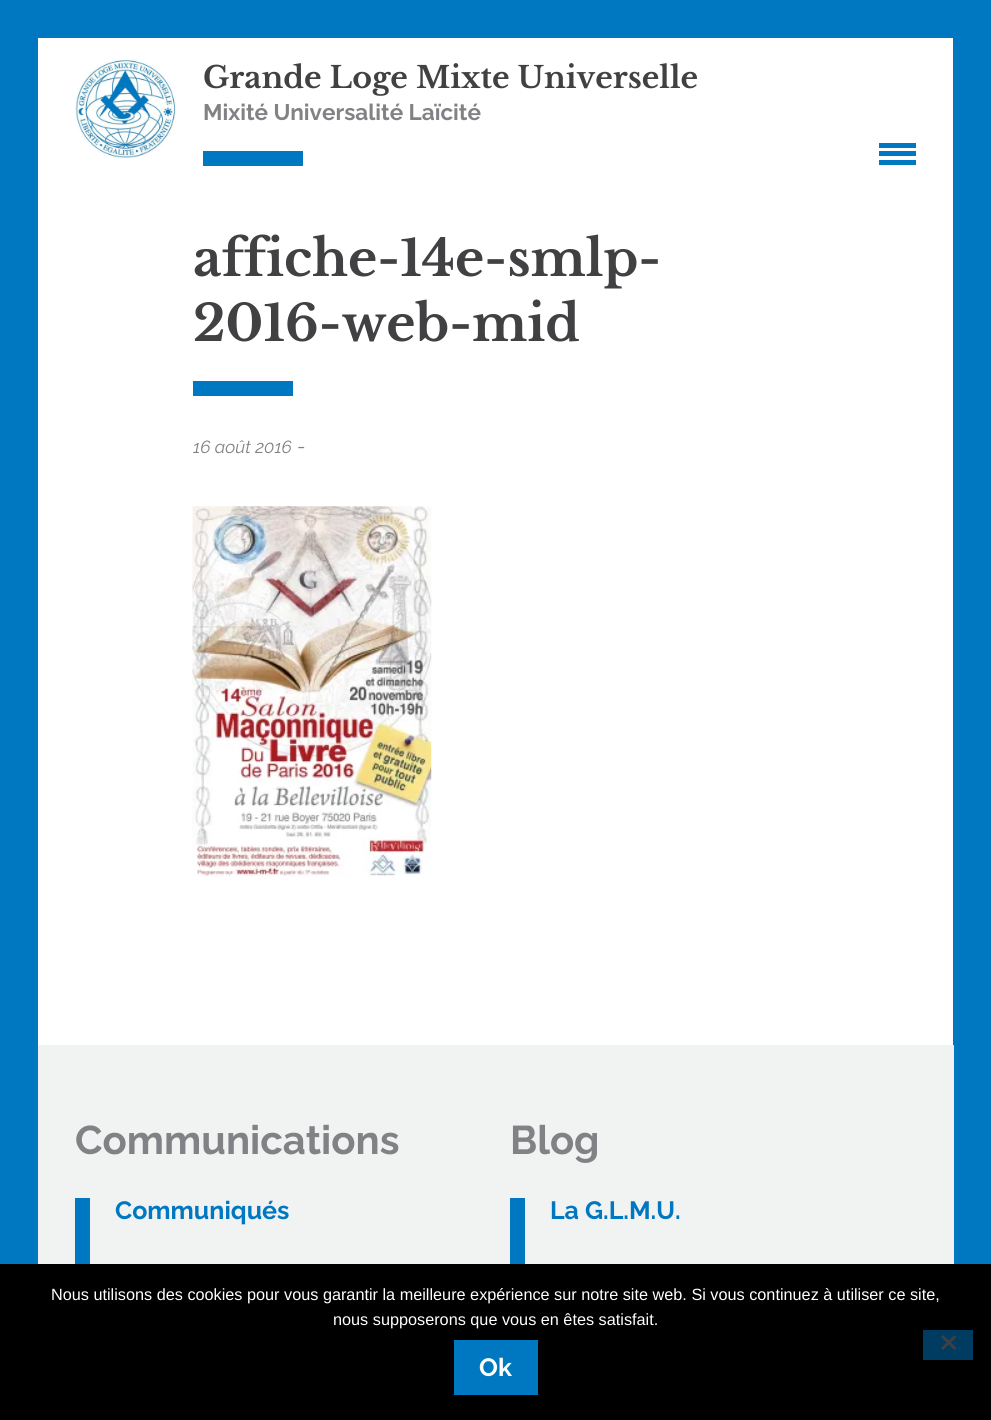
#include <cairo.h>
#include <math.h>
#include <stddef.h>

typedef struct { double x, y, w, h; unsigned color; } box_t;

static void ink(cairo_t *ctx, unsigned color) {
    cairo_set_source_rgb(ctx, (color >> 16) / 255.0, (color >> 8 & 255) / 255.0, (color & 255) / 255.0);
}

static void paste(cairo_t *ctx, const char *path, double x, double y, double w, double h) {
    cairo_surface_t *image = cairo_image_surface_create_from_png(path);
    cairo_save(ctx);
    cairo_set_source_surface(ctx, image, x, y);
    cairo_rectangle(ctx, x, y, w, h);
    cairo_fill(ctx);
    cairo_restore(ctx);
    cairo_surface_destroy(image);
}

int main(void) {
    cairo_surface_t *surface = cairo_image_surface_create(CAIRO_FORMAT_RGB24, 991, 1420);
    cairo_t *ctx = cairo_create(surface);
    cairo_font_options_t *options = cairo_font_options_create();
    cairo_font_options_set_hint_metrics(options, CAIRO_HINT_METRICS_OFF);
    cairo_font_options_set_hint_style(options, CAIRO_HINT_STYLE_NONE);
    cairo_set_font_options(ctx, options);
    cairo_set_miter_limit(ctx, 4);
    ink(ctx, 0xFFFFFF);
    cairo_paint(ctx);
    cairo_rectangle(ctx, 19, 19, 953, 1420);
    ink(ctx, 0x0078C1);
    cairo_set_line_width(ctx, 38);
    cairo_stroke(ctx);
    paste(ctx, "media/1.png", 75, 59, 101, 100);
    cairo_select_font_face(ctx, "Libre Baskerville", CAIRO_FONT_SLANT_NORMAL, CAIRO_FONT_WEIGHT_BOLD);
    cairo_set_font_size(ctx, 30);
    ink(ctx, 0x414042);
    cairo_move_to(ctx, 203, 88);
    cairo_show_text(ctx, "Grande Loge Mixte Universelle");
    cairo_select_font_face(ctx, "Raleway", CAIRO_FONT_SLANT_NORMAL, CAIRO_FONT_WEIGHT_BOLD);
    cairo_set_font_size(ctx, 22.5);
    ink(ctx, 0x808285);
    cairo_move_to(ctx, 203, 120);
    cairo_show_text(ctx, "Mixité Universalité Laïcité");
    ink(ctx, 0x0078C1);
    cairo_rectangle(ctx, 203, 151, 100, 15);
    cairo_fill(ctx);
    cairo_select_font_face(ctx, "Libre Baskerville", CAIRO_FONT_SLANT_NORMAL, CAIRO_FONT_WEIGHT_BOLD);
    cairo_set_font_size(ctx, 50);
    ink(ctx, 0x414042);
    cairo_move_to(ctx, 193, 276);
    cairo_show_text(ctx, "affiche-14e-smlp-");
    cairo_move_to(ctx, 193, 341);
    cairo_show_text(ctx, "2016-web-mid");
    ink(ctx, 0x0078C1);
    cairo_rectangle(ctx, 193, 381, 100, 15);
    cairo_fill(ctx);
    cairo_select_font_face(ctx, "Raleway", CAIRO_FONT_SLANT_ITALIC, CAIRO_FONT_WEIGHT_NORMAL);
    cairo_set_font_size(ctx, 17.5);
    ink(ctx, 0x808285);
    cairo_move_to(ctx, 193, 453);
    cairo_show_text(ctx, "16 août 2016");
    cairo_select_font_face(ctx, "Raleway", CAIRO_FONT_SLANT_NORMAL, CAIRO_FONT_WEIGHT_NORMAL);
    cairo_set_font_size(ctx, 20);
    cairo_move_to(ctx, 297, 453);
    cairo_show_text(ctx, "-");
    paste(ctx, "media/2.png", 192, 506, 240, 371);
    ink(ctx, 0xF1F2F2);
    cairo_rectangle(ctx, 38, 1045, 916, 219);
    cairo_fill(ctx);
    cairo_select_font_face(ctx, "Raleway", CAIRO_FONT_SLANT_NORMAL, CAIRO_FONT_WEIGHT_BOLD);
    cairo_set_font_size(ctx, 40);
    ink(ctx, 0x808285);
    cairo_move_to(ctx, 75, 1154);
    cairo_show_text(ctx, "Communications");
    ink(ctx, 0x0078C1);
    cairo_rectangle(ctx, 75, 1198, 15, 66);
    cairo_fill(ctx);
    cairo_set_font_size(ctx, 25);
    cairo_move_to(ctx, 115, 1219);
    cairo_show_text(ctx, "Communiqués");
    cairo_set_font_size(ctx, 40);
    ink(ctx, 0x808285);
    cairo_move_to(ctx, 510, 1154);
    cairo_show_text(ctx, "Blog");
    ink(ctx, 0x0078C1);
    cairo_rectangle(ctx, 510, 1198, 15, 66);
    cairo_fill(ctx);
    cairo_set_font_size(ctx, 25);
    cairo_move_to(ctx, 550, 1219);
    cairo_show_text(ctx, "La G.L.M.U.");
    {
        static const box_t items[] = {
            {879, 151, 37, 5, 0x0078C1},
            {879, 143, 37, 5, 0x0078C1},
            {879, 160, 37, 5, 0x0078C1},
            {0, 1264, 991, 156, 0x000000},
        };
        for (size_t i = 0; i < sizeof items / sizeof *items; i++) {
            ink(ctx, items[i].color);
            cairo_rectangle(ctx, items[i].x, items[i].y, items[i].w, items[i].h);
            cairo_fill(ctx);
        }
    }
    cairo_select_font_face(ctx, "Liberation Sans", CAIRO_FONT_SLANT_NORMAL, CAIRO_FONT_WEIGHT_NORMAL);
    cairo_set_font_size(ctx, 16.25);
    ink(ctx, 0xFFFFFF);
    cairo_move_to(ctx, 51, 1300);
    cairo_show_text(ctx, "Nous utilisons des cookies pour vous garantir la meilleure expérience sur notre site web. Si vous continuez à utiliser ce site,");
    cairo_move_to(ctx, 333, 1325);
    cairo_show_text(ctx, "nous supposerons que vous en êtes satisfait.");
    ink(ctx, 0x003C61);
    cairo_rectangle(ctx, 923, 1330, 50, 30);
    cairo_fill(ctx);
    ink(ctx, 0x404040);
    cairo_new_path(ctx);
    cairo_move_to(ctx, 954.5, 1335);
    cairo_line_to(ctx, 956.5, 1337);
    cairo_line_to(ctx, 943, 1350);
    cairo_line_to(ctx, 941, 1348);
    cairo_close_path(ctx);
    cairo_fill(ctx);
    cairo_new_path(ctx);
    cairo_move_to(ctx, 941, 1337);
    cairo_line_to(ctx, 943, 1335);
    cairo_line_to(ctx, 956.5, 1348);
    cairo_line_to(ctx, 954.5, 1350);
    cairo_close_path(ctx);
    cairo_fill(ctx);
    ink(ctx, 0x0078C1);
    cairo_rectangle(ctx, 454, 1340, 84, 55);
    cairo_fill(ctx);
    cairo_select_font_face(ctx, "Raleway", CAIRO_FONT_SLANT_NORMAL, CAIRO_FONT_WEIGHT_BOLD);
    cairo_set_font_size(ctx, 25);
    ink(ctx, 0xFFFFFF);
    cairo_move_to(ctx, 479, 1376);
    cairo_show_text(ctx, "Ok");
    cairo_surface_write_to_png(surface, "image.png");
    cairo_font_options_destroy(options);
    cairo_destroy(ctx);
    cairo_surface_destroy(surface);
    return 0;
}
